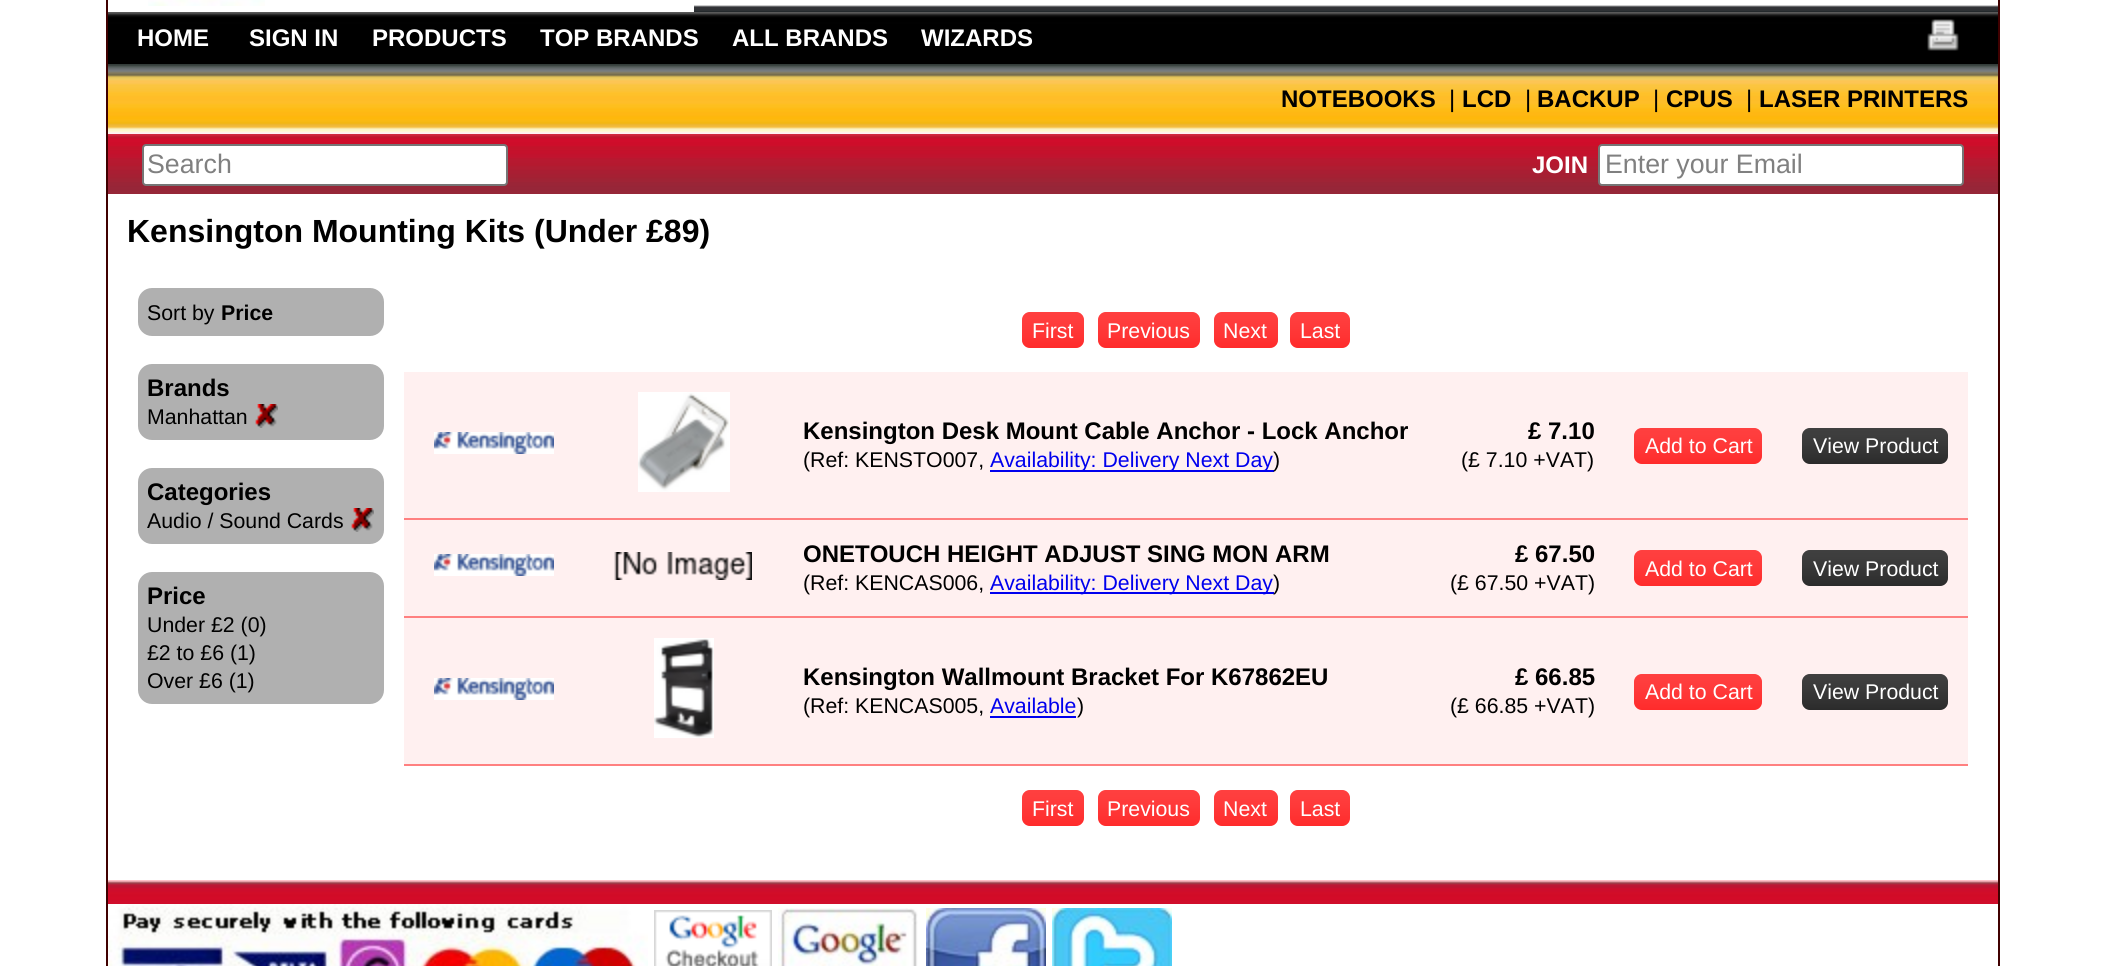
#include <cairo.h>
#include <math.h>
#include <stddef.h>

typedef struct { double x, y; const char *s; } line_t;

static void ink(cairo_t *ctx, unsigned color) {
    cairo_set_source_rgb(ctx, (color >> 16) / 255.0, (color >> 8 & 255) / 255.0, (color & 255) / 255.0);
}

static void round_path(cairo_t *ctx, double x, double y, double w, double h, double r) {
    cairo_new_sub_path(ctx);
    cairo_arc(ctx, x + w - r, y + h - r, r, 0, M_PI / 2);
    cairo_arc(ctx, x + r, y + h - r, r, M_PI / 2, M_PI);
    cairo_arc(ctx, x + r, y + r, r, M_PI, 1.5 * M_PI);
    cairo_arc(ctx, x + w - r, y + r, r, 1.5 * M_PI, 2 * M_PI);
    cairo_close_path(ctx);
}

static void paste(cairo_t *ctx, const char *path, double x, double y, double w, double h) {
    cairo_surface_t *image = cairo_image_surface_create_from_png(path);
    cairo_save(ctx);
    cairo_set_source_surface(ctx, image, x, y);
    cairo_rectangle(ctx, x, y, w, h);
    cairo_fill(ctx);
    cairo_restore(ctx);
    cairo_surface_destroy(image);
}

int main(void) {
    cairo_surface_t *surface = cairo_image_surface_create(CAIRO_FORMAT_RGB24, 2106, 966);
    cairo_t *ctx = cairo_create(surface);
    cairo_font_options_t *options = cairo_font_options_create();
    cairo_font_options_set_hint_metrics(options, CAIRO_HINT_METRICS_OFF);
    cairo_font_options_set_hint_style(options, CAIRO_HINT_STYLE_NONE);
    cairo_set_font_options(ctx, options);
    cairo_set_miter_limit(ctx, 4);
    ink(ctx, 0xFFFFFF);
    cairo_paint(ctx);
    cairo_rectangle(ctx, 107, -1, 1892, 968);
    ink(ctx, 0x400000);
    cairo_stroke(ctx);
    paste(ctx, "media/1.png", 148, 0, 117, 6);
    paste(ctx, "media/2.png", 694, 5, 1304, 7);
    paste(ctx, "media/3.png", 108, 12, 1512, 52);
    cairo_select_font_face(ctx, "Liberation Sans", CAIRO_FONT_SLANT_NORMAL, CAIRO_FONT_WEIGHT_BOLD);
    cairo_set_font_size(ctx, 24);
    ink(ctx, 0xFFFFFF);
    {
        static const line_t items[] = {
            {137, 46, "HOME"},
            {249, 46, "SIGN IN"},
            {372, 46, "PRODUCTS"},
            {540, 46, "TOP BRANDS"},
            {732, 46, "ALL BRANDS"},
            {921, 46, "WIZARDS"},
        };
        for (size_t i = 0; i < sizeof items / sizeof *items; i++) {
            cairo_move_to(ctx, items[i].x, items[i].y);
            cairo_show_text(ctx, items[i].s);
        }
    }
    paste(ctx, "media/4.png", 1620, 12, 378, 52);
    paste(ctx, "media/5.png", 1927, 19, 32, 32);
    paste(ctx, "media/6.png", 108, 64, 1890, 70);
    ink(ctx, 0x000000);
    cairo_move_to(ctx, 1281, 107);
    cairo_show_text(ctx, "NOTEBOOKS");
    cairo_select_font_face(ctx, "Liberation Sans", CAIRO_FONT_SLANT_NORMAL, CAIRO_FONT_WEIGHT_NORMAL);
    cairo_move_to(ctx, 1449, 107);
    cairo_show_text(ctx, "|");
    cairo_select_font_face(ctx, "Liberation Sans", CAIRO_FONT_SLANT_NORMAL, CAIRO_FONT_WEIGHT_BOLD);
    cairo_move_to(ctx, 1462, 107);
    cairo_show_text(ctx, "LCD");
    cairo_select_font_face(ctx, "Liberation Sans", CAIRO_FONT_SLANT_NORMAL, CAIRO_FONT_WEIGHT_NORMAL);
    cairo_move_to(ctx, 1525, 107);
    cairo_show_text(ctx, "|");
    cairo_select_font_face(ctx, "Liberation Sans", CAIRO_FONT_SLANT_NORMAL, CAIRO_FONT_WEIGHT_BOLD);
    cairo_move_to(ctx, 1537, 107);
    cairo_show_text(ctx, "BACKUP");
    cairo_select_font_face(ctx, "Liberation Sans", CAIRO_FONT_SLANT_NORMAL, CAIRO_FONT_WEIGHT_NORMAL);
    cairo_move_to(ctx, 1653, 107);
    cairo_show_text(ctx, "|");
    cairo_select_font_face(ctx, "Liberation Sans", CAIRO_FONT_SLANT_NORMAL, CAIRO_FONT_WEIGHT_BOLD);
    cairo_move_to(ctx, 1666, 107);
    cairo_show_text(ctx, "CPUS");
    cairo_select_font_face(ctx, "Liberation Sans", CAIRO_FONT_SLANT_NORMAL, CAIRO_FONT_WEIGHT_NORMAL);
    cairo_move_to(ctx, 1746, 107);
    cairo_show_text(ctx, "|");
    cairo_select_font_face(ctx, "Liberation Sans", CAIRO_FONT_SLANT_NORMAL, CAIRO_FONT_WEIGHT_BOLD);
    cairo_move_to(ctx, 1759, 107);
    cairo_show_text(ctx, "LASER PRINTERS");
    paste(ctx, "media/7.png", 108, 134, 946, 60);
    ink(ctx, 0xFFFFFF);
    round_path(ctx, 143, 145, 364, 40, 3);
    cairo_fill_preserve(ctx);
    ink(ctx, 0x767676);
    cairo_stroke(ctx);
    cairo_select_font_face(ctx, "Liberation Sans", CAIRO_FONT_SLANT_NORMAL, CAIRO_FONT_WEIGHT_NORMAL);
    cairo_set_font_size(ctx, 26.75);
    ink(ctx, 0x808080);
    cairo_move_to(ctx, 147, 173);
    cairo_show_text(ctx, "Search");
    paste(ctx, "media/8.png", 1054, 134, 944, 60);
    cairo_select_font_face(ctx, "Liberation Sans", CAIRO_FONT_SLANT_NORMAL, CAIRO_FONT_WEIGHT_BOLD);
    cairo_set_font_size(ctx, 24);
    ink(ctx, 0xFFFFFF);
    cairo_move_to(ctx, 1532, 173);
    cairo_show_text(ctx, "JOIN");
    round_path(ctx, 1599, 145, 364, 40, 3);
    cairo_fill_preserve(ctx);
    ink(ctx, 0x767676);
    cairo_stroke(ctx);
    cairo_select_font_face(ctx, "Liberation Sans", CAIRO_FONT_SLANT_NORMAL, CAIRO_FONT_WEIGHT_NORMAL);
    cairo_set_font_size(ctx, 26.75);
    ink(ctx, 0x808080);
    cairo_move_to(ctx, 1605, 173);
    cairo_show_text(ctx, "Enter your Email");
    cairo_select_font_face(ctx, "Liberation Sans", CAIRO_FONT_SLANT_NORMAL, CAIRO_FONT_WEIGHT_BOLD);
    cairo_set_font_size(ctx, 32);
    ink(ctx, 0x000000);
    cairo_move_to(ctx, 127, 242);
    cairo_show_text(ctx, "Kensington Mounting Kits (Under £89)");
    ink(ctx, 0xB0B0B0);
    round_path(ctx, 138, 288, 246, 48, 14);
    cairo_fill(ctx);
    cairo_select_font_face(ctx, "Liberation Sans", CAIRO_FONT_SLANT_NORMAL, CAIRO_FONT_WEIGHT_NORMAL);
    cairo_set_font_size(ctx, 21.3);
    ink(ctx, 0x000000);
    cairo_move_to(ctx, 147, 320);
    cairo_show_text(ctx, "Sort by");
    cairo_select_font_face(ctx, "Liberation Sans", CAIRO_FONT_SLANT_NORMAL, CAIRO_FONT_WEIGHT_BOLD);
    cairo_move_to(ctx, 221, 320);
    cairo_show_text(ctx, "Price");
    ink(ctx, 0xB0B0B0);
    round_path(ctx, 138, 364, 246, 76, 14);
    cairo_fill(ctx);
    cairo_set_font_size(ctx, 24);
    ink(ctx, 0x000000);
    cairo_move_to(ctx, 147, 396);
    cairo_show_text(ctx, "Brands");
    cairo_select_font_face(ctx, "Liberation Sans", CAIRO_FONT_SLANT_NORMAL, CAIRO_FONT_WEIGHT_NORMAL);
    cairo_set_font_size(ctx, 21.3);
    cairo_move_to(ctx, 147, 424);
    cairo_show_text(ctx, "Manhattan");
    paste(ctx, "media/9.png", 255, 404, 23, 24);
    ink(ctx, 0xB0B0B0);
    round_path(ctx, 138, 468, 246, 76, 14);
    cairo_fill(ctx);
    cairo_select_font_face(ctx, "Liberation Sans", CAIRO_FONT_SLANT_NORMAL, CAIRO_FONT_WEIGHT_BOLD);
    cairo_set_font_size(ctx, 24);
    ink(ctx, 0x000000);
    cairo_move_to(ctx, 147, 500);
    cairo_show_text(ctx, "Categories");
    cairo_select_font_face(ctx, "Liberation Sans", CAIRO_FONT_SLANT_NORMAL, CAIRO_FONT_WEIGHT_NORMAL);
    cairo_set_font_size(ctx, 21.3);
    cairo_move_to(ctx, 147, 528);
    cairo_show_text(ctx, "Audio / Sound Cards");
    paste(ctx, "media/9.png", 351, 508, 23, 24);
    ink(ctx, 0xB0B0B0);
    round_path(ctx, 138, 572, 246, 132, 14);
    cairo_fill(ctx);
    cairo_select_font_face(ctx, "Liberation Sans", CAIRO_FONT_SLANT_NORMAL, CAIRO_FONT_WEIGHT_BOLD);
    cairo_set_font_size(ctx, 24);
    ink(ctx, 0x000000);
    cairo_move_to(ctx, 147, 604);
    cairo_show_text(ctx, "Price");
    cairo_select_font_face(ctx, "Liberation Sans", CAIRO_FONT_SLANT_NORMAL, CAIRO_FONT_WEIGHT_NORMAL);
    cairo_set_font_size(ctx, 21.3);
    {
        static const line_t items[] = {
            {147, 632, "Under £2 (0)"},
            {147, 660, "£2 to £6 (1)"},
            {147, 688, "Over £6 (1)"},
        };
        for (size_t i = 0; i < sizeof items / sizeof *items; i++) {
            cairo_move_to(ctx, items[i].x, items[i].y);
            cairo_show_text(ctx, items[i].s);
        }
    }
    ink(ctx, 0xFF0000);
    round_path(ctx, 1022, 312, 62, 36, 8);
    cairo_fill(ctx);
    paste(ctx, "media/10.png", 1022, 312, 62, 36);
    ink(ctx, 0xFFFFFF);
    cairo_move_to(ctx, 1032, 338);
    cairo_show_text(ctx, "First");
    ink(ctx, 0xFF0000);
    round_path(ctx, 1098, 312, 102, 36, 8);
    cairo_fill(ctx);
    paste(ctx, "media/11.png", 1098, 312, 102, 36);
    ink(ctx, 0xFFFFFF);
    cairo_move_to(ctx, 1107, 338);
    cairo_show_text(ctx, "Previous");
    ink(ctx, 0xFF0000);
    round_path(ctx, 1214, 312, 64, 36, 8);
    cairo_fill(ctx);
    paste(ctx, "media/12.png", 1214, 312, 64, 36);
    ink(ctx, 0xFFFFFF);
    cairo_move_to(ctx, 1223, 338);
    cairo_show_text(ctx, "Next");
    ink(ctx, 0xFF0000);
    round_path(ctx, 1290, 312, 60, 36, 8);
    cairo_fill(ctx);
    paste(ctx, "media/13.png", 1290, 312, 60, 36);
    ink(ctx, 0xFFFFFF);
    cairo_move_to(ctx, 1300, 338);
    cairo_show_text(ctx, "Last");
    ink(ctx, 0xFFF0F0);
    cairo_rectangle(ctx, 404, 372, 1564, 146);
    cairo_fill(ctx);
    ink(ctx, 0xFF8080);
    cairo_rectangle(ctx, 404, 518, 1564, 2);
    cairo_fill(ctx);
    paste(ctx, "media/14.png", 434, 432, 120, 22);
    paste(ctx, "media/15.png", 638, 392, 92, 100);
    cairo_select_font_face(ctx, "Liberation Sans", CAIRO_FONT_SLANT_NORMAL, CAIRO_FONT_WEIGHT_BOLD);
    cairo_set_font_size(ctx, 24);
    ink(ctx, 0x000000);
    cairo_move_to(ctx, 803, 439);
    cairo_show_text(ctx, "Kensington Desk Mount Cable Anchor - Lock Anchor");
    cairo_select_font_face(ctx, "Liberation Sans", CAIRO_FONT_SLANT_NORMAL, CAIRO_FONT_WEIGHT_NORMAL);
    cairo_set_font_size(ctx, 21.3);
    cairo_move_to(ctx, 803, 467);
    cairo_show_text(ctx, "(Ref: KENSTO007,");
    ink(ctx, 0x0000EE);
    cairo_rectangle(ctx, 990, 470, 284, 2);
    cairo_fill(ctx);
    cairo_move_to(ctx, 990, 467);
    cairo_show_text(ctx, "Availability: Delivery Next Day");
    ink(ctx, 0x000000);
    cairo_move_to(ctx, 1273, 467);
    cairo_show_text(ctx, ")");
    cairo_select_font_face(ctx, "Liberation Sans", CAIRO_FONT_SLANT_NORMAL, CAIRO_FONT_WEIGHT_BOLD);
    cairo_set_font_size(ctx, 24);
    cairo_move_to(ctx, 1528, 439);
    cairo_show_text(ctx, "£ 7.10");
    cairo_select_font_face(ctx, "Liberation Sans", CAIRO_FONT_SLANT_NORMAL, CAIRO_FONT_WEIGHT_NORMAL);
    cairo_set_font_size(ctx, 21.3);
    cairo_move_to(ctx, 1461, 467);
    cairo_show_text(ctx, "(£ 7.10 +VAT)");
    ink(ctx, 0xFF0000);
    round_path(ctx, 1634, 428, 128, 36, 8);
    cairo_fill(ctx);
    paste(ctx, "media/16.png", 1634, 428, 128, 36);
    ink(ctx, 0xFFFFFF);
    cairo_move_to(ctx, 1645, 453);
    cairo_show_text(ctx, "Add to Cart");
    ink(ctx, 0x000000);
    round_path(ctx, 1802, 428, 146, 36, 8);
    cairo_fill(ctx);
    paste(ctx, "media/17.png", 1802, 428, 146, 36);
    ink(ctx, 0xFFFFFF);
    cairo_move_to(ctx, 1813, 453);
    cairo_show_text(ctx, "View Product");
    ink(ctx, 0xFFF0F0);
    cairo_rectangle(ctx, 404, 520, 1564, 96);
    cairo_fill(ctx);
    ink(ctx, 0xFF8080);
    cairo_rectangle(ctx, 404, 616, 1564, 2);
    cairo_fill(ctx);
    paste(ctx, "media/14.png", 434, 554, 120, 22);
    paste(ctx, "media/18.png", 614, 552, 138, 28);
    cairo_select_font_face(ctx, "Liberation Sans", CAIRO_FONT_SLANT_NORMAL, CAIRO_FONT_WEIGHT_BOLD);
    cairo_set_font_size(ctx, 24);
    ink(ctx, 0x000000);
    cairo_move_to(ctx, 803, 562);
    cairo_show_text(ctx, "ONETOUCH HEIGHT ADJUST SING MON ARM");
    cairo_select_font_face(ctx, "Liberation Sans", CAIRO_FONT_SLANT_NORMAL, CAIRO_FONT_WEIGHT_NORMAL);
    cairo_set_font_size(ctx, 21.3);
    cairo_move_to(ctx, 803, 590);
    cairo_show_text(ctx, "(Ref: KENCAS006,");
    ink(ctx, 0x0000EE);
    cairo_rectangle(ctx, 990, 592, 284, 2);
    cairo_fill(ctx);
    cairo_move_to(ctx, 990, 590);
    cairo_show_text(ctx, "Availability: Delivery Next Day");
    ink(ctx, 0x000000);
    cairo_move_to(ctx, 1273, 590);
    cairo_show_text(ctx, ")");
    cairo_select_font_face(ctx, "Liberation Sans", CAIRO_FONT_SLANT_NORMAL, CAIRO_FONT_WEIGHT_BOLD);
    cairo_set_font_size(ctx, 24);
    cairo_move_to(ctx, 1515, 562);
    cairo_show_text(ctx, "£ 67.50");
    cairo_select_font_face(ctx, "Liberation Sans", CAIRO_FONT_SLANT_NORMAL, CAIRO_FONT_WEIGHT_NORMAL);
    cairo_set_font_size(ctx, 21.3);
    cairo_move_to(ctx, 1450, 590);
    cairo_show_text(ctx, "(£ 67.50 +VAT)");
    ink(ctx, 0xFF0000);
    round_path(ctx, 1634, 550, 128, 36, 8);
    cairo_fill(ctx);
    paste(ctx, "media/16.png", 1634, 550, 128, 36);
    ink(ctx, 0xFFFFFF);
    cairo_move_to(ctx, 1645, 576);
    cairo_show_text(ctx, "Add to Cart");
    ink(ctx, 0x000000);
    round_path(ctx, 1802, 550, 146, 36, 8);
    cairo_fill(ctx);
    paste(ctx, "media/17.png", 1802, 550, 146, 36);
    ink(ctx, 0xFFFFFF);
    cairo_move_to(ctx, 1813, 576);
    cairo_show_text(ctx, "View Product");
    ink(ctx, 0xFFF0F0);
    cairo_rectangle(ctx, 404, 618, 1564, 146);
    cairo_fill(ctx);
    ink(ctx, 0xFF8080);
    cairo_rectangle(ctx, 404, 764, 1564, 2);
    cairo_fill(ctx);
    paste(ctx, "media/14.png", 434, 678, 120, 22);
    paste(ctx, "media/19.png", 654, 638, 60, 100);
    cairo_select_font_face(ctx, "Liberation Sans", CAIRO_FONT_SLANT_NORMAL, CAIRO_FONT_WEIGHT_BOLD);
    cairo_set_font_size(ctx, 24);
    ink(ctx, 0x000000);
    cairo_move_to(ctx, 803, 685);
    cairo_show_text(ctx, "Kensington Wallmount Bracket For K67862EU");
    cairo_select_font_face(ctx, "Liberation Sans", CAIRO_FONT_SLANT_NORMAL, CAIRO_FONT_WEIGHT_NORMAL);
    cairo_set_font_size(ctx, 21.3);
    cairo_move_to(ctx, 803, 713);
    cairo_show_text(ctx, "(Ref: KENCAS005,");
    ink(ctx, 0x0000EE);
    cairo_move_to(ctx, 990, 713);
    cairo_show_text(ctx, "Available");
    ink(ctx, 0x000000);
    cairo_move_to(ctx, 1077, 713);
    cairo_show_text(ctx, ")");
    ink(ctx, 0x0000EE);
    cairo_rectangle(ctx, 990, 716, 86, 2);
    cairo_fill(ctx);
    cairo_select_font_face(ctx, "Liberation Sans", CAIRO_FONT_SLANT_NORMAL, CAIRO_FONT_WEIGHT_BOLD);
    cairo_set_font_size(ctx, 24);
    ink(ctx, 0x000000);
    cairo_move_to(ctx, 1515, 685);
    cairo_show_text(ctx, "£ 66.85");
    cairo_select_font_face(ctx, "Liberation Sans", CAIRO_FONT_SLANT_NORMAL, CAIRO_FONT_WEIGHT_NORMAL);
    cairo_set_font_size(ctx, 21.3);
    cairo_move_to(ctx, 1450, 713);
    cairo_show_text(ctx, "(£ 66.85 +VAT)");
    ink(ctx, 0xFF0000);
    round_path(ctx, 1634, 674, 128, 36, 8);
    cairo_fill(ctx);
    paste(ctx, "media/16.png", 1634, 674, 128, 36);
    ink(ctx, 0xFFFFFF);
    cairo_move_to(ctx, 1645, 699);
    cairo_show_text(ctx, "Add to Cart");
    ink(ctx, 0x000000);
    round_path(ctx, 1802, 674, 146, 36, 8);
    cairo_fill(ctx);
    paste(ctx, "media/17.png", 1802, 674, 146, 36);
    ink(ctx, 0xFFFFFF);
    cairo_move_to(ctx, 1813, 699);
    cairo_show_text(ctx, "View Product");
    ink(ctx, 0xFF0000);
    round_path(ctx, 1022, 790, 62, 36, 8);
    cairo_fill(ctx);
    paste(ctx, "media/10.png", 1022, 790, 62, 36);
    ink(ctx, 0xFFFFFF);
    cairo_move_to(ctx, 1032, 816);
    cairo_show_text(ctx, "First");
    ink(ctx, 0xFF0000);
    round_path(ctx, 1098, 790, 102, 36, 8);
    cairo_fill(ctx);
    paste(ctx, "media/11.png", 1098, 790, 102, 36);
    ink(ctx, 0xFFFFFF);
    cairo_move_to(ctx, 1107, 816);
    cairo_show_text(ctx, "Previous");
    ink(ctx, 0xFF0000);
    round_path(ctx, 1214, 790, 64, 36, 8);
    cairo_fill(ctx);
    paste(ctx, "media/12.png", 1214, 790, 64, 36);
    ink(ctx, 0xFFFFFF);
    cairo_move_to(ctx, 1223, 816);
    cairo_show_text(ctx, "Next");
    ink(ctx, 0xFF0000);
    round_path(ctx, 1290, 790, 60, 36, 8);
    cairo_fill(ctx);
    paste(ctx, "media/13.png", 1290, 790, 60, 36);
    ink(ctx, 0xFFFFFF);
    cairo_move_to(ctx, 1300, 816);
    cairo_show_text(ctx, "Last");
    paste(ctx, "media/20.png", 108, 880, 1890, 24);
    paste(ctx, "media/21.png", 108, 904, 540, 62);
    paste(ctx, "media/22.png", 654, 910, 118, 56);
    paste(ctx, "media/23.png", 778, 908, 140, 58);
    paste(ctx, "media/24.png", 926, 908, 120, 58);
    paste(ctx, "media/25.png", 1052, 908, 120, 58);
    cairo_surface_write_to_png(surface, "image.png");
    cairo_font_options_destroy(options);
    cairo_destroy(ctx);
    cairo_surface_destroy(surface);
    return 0;
}
